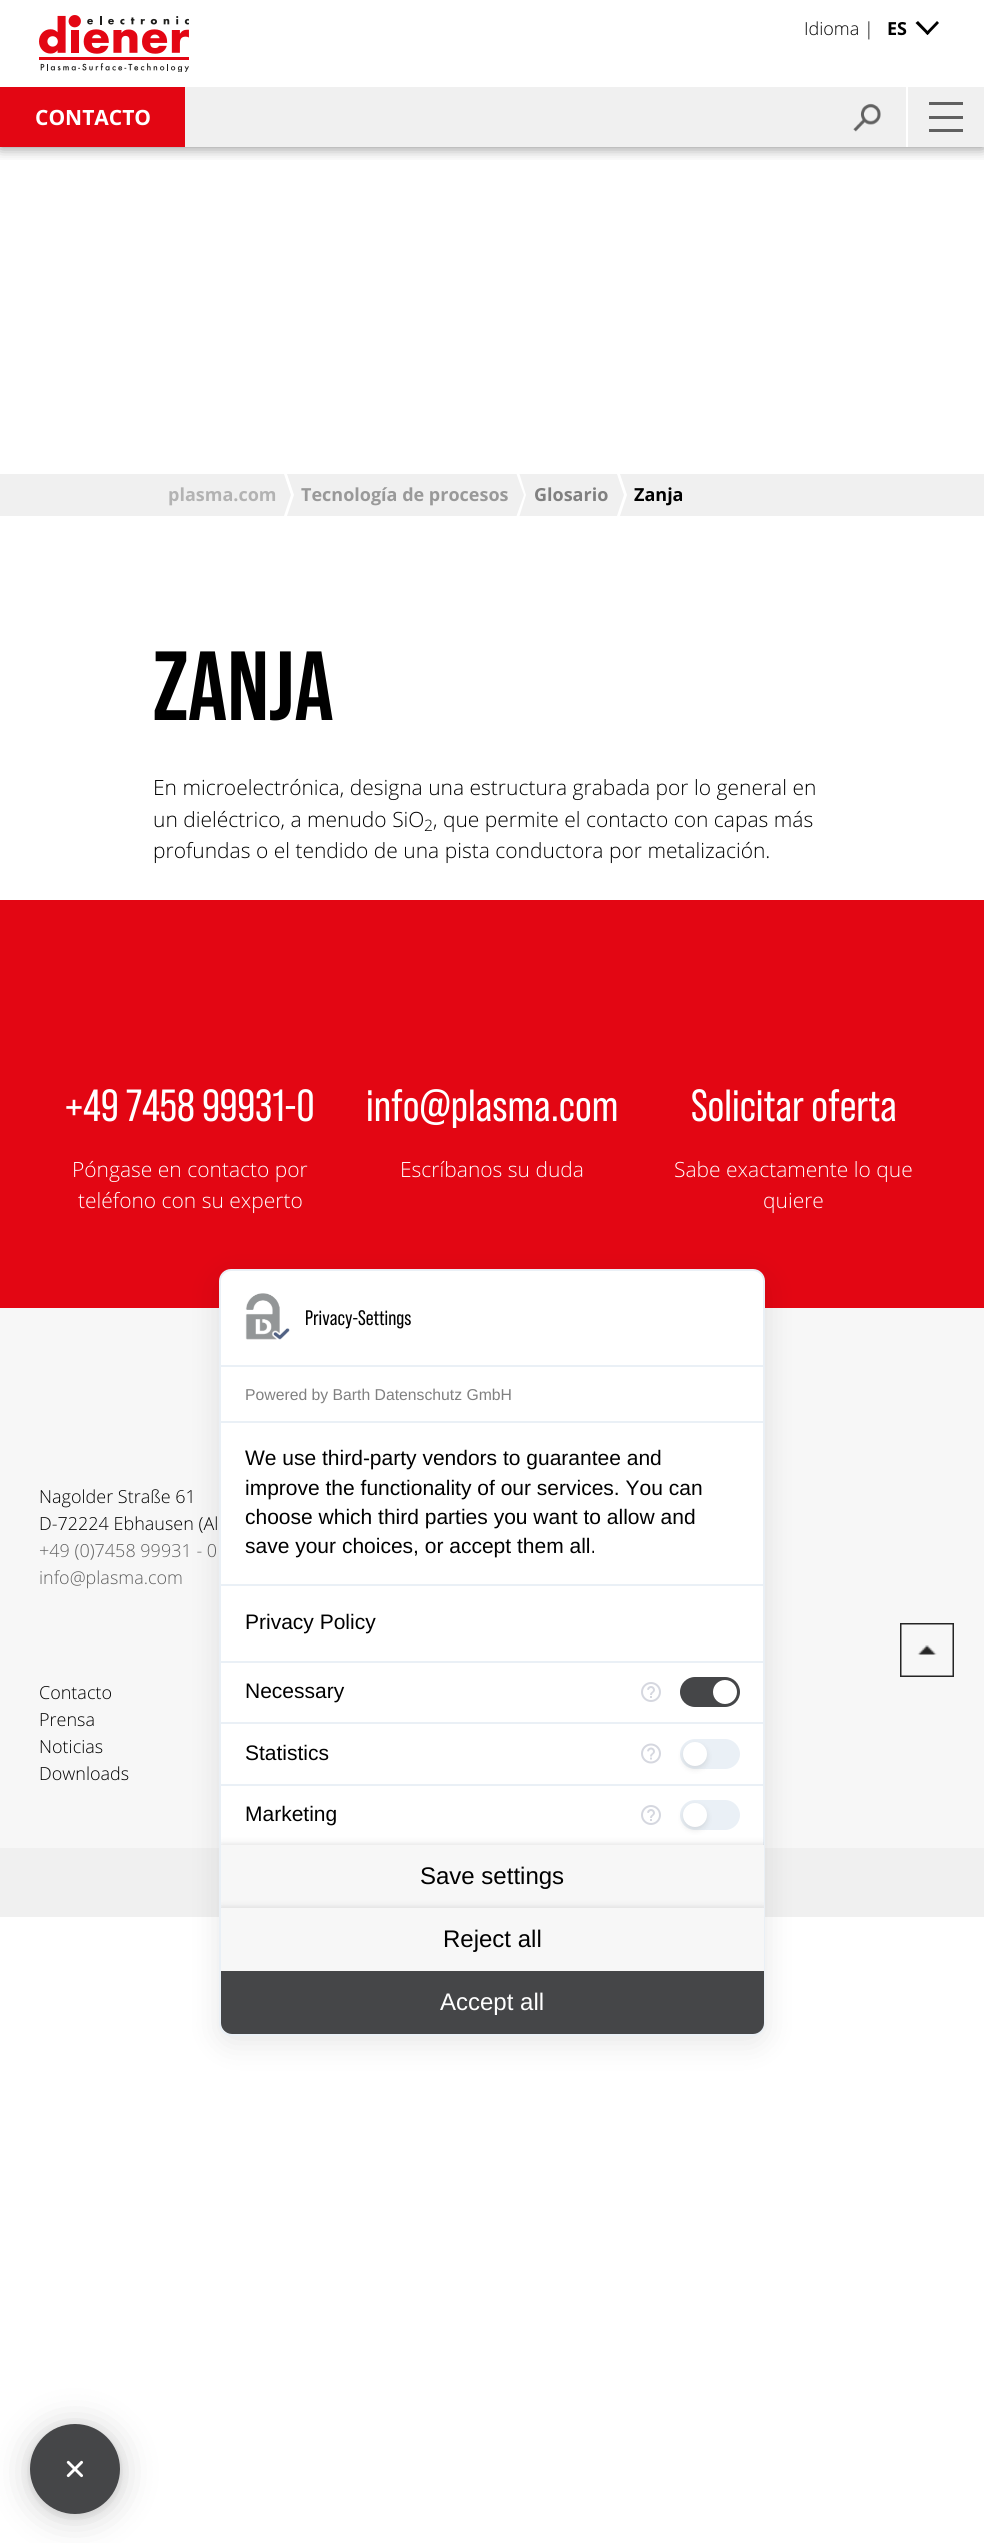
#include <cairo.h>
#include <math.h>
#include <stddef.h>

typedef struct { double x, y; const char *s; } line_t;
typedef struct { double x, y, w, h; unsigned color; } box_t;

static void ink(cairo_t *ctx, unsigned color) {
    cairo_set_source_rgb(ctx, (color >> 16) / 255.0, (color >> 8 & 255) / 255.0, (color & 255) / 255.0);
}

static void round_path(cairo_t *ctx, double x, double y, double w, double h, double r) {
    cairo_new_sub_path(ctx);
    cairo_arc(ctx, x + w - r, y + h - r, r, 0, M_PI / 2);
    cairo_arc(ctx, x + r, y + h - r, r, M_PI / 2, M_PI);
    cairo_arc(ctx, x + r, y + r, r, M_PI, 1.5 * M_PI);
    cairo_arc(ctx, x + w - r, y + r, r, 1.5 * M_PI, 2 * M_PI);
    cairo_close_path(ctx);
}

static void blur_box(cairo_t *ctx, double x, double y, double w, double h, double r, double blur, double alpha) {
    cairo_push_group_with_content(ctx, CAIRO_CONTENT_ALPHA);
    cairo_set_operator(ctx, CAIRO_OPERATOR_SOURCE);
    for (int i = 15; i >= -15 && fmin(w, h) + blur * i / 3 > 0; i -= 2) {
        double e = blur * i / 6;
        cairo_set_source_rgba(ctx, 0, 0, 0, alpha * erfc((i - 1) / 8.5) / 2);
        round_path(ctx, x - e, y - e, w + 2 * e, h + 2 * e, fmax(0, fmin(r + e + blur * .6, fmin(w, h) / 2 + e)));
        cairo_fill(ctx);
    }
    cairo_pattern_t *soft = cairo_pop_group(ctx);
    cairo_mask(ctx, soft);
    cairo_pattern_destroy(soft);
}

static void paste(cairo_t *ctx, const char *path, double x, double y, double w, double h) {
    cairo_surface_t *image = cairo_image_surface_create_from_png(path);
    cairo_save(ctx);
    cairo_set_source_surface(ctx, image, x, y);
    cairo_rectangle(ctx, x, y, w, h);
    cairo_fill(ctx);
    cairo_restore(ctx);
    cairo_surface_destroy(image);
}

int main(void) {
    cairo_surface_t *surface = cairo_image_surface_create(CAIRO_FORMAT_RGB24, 984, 2543);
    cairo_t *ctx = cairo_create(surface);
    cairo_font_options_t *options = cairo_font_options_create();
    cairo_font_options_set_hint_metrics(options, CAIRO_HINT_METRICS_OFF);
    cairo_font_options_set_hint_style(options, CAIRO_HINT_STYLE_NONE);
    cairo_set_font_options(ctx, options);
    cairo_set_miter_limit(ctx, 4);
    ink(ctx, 0xFFFFFF);
    cairo_paint(ctx);
    cairo_save(ctx);
    cairo_rectangle(ctx, 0, 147, 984, 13);
    cairo_clip(ctx);
    ink(ctx, 0x000000);
    blur_box(ctx, 0, 0, 984, 147, 0, 7.5, 0.5);
    cairo_restore(ctx);
    paste(ctx, "media/1.png", 39, 15, 150, 57);
    cairo_select_font_face(ctx, "Open Sans Light", CAIRO_FONT_SLANT_NORMAL, CAIRO_FONT_WEIGHT_NORMAL);
    cairo_set_font_size(ctx, 18);
    ink(ctx, 0x000000);
    cairo_move_to(ctx, 804, 35);
    cairo_show_text(ctx, "Idioma |");
    cairo_select_font_face(ctx, "Open Sans", CAIRO_FONT_SLANT_NORMAL, CAIRO_FONT_WEIGHT_BOLD);
    cairo_move_to(ctx, 887, 35);
    cairo_show_text(ctx, "ES");
    cairo_new_path(ctx);
    cairo_move_to(ctx, 925.5, 33);
    cairo_line_to(ctx, 937, 21);
    cairo_line_to(ctx, 939, 23);
    cairo_line_to(ctx, 927.5, 35);
    cairo_close_path(ctx);
    cairo_fill(ctx);
    cairo_new_path(ctx);
    cairo_move_to(ctx, 915.5, 23);
    cairo_line_to(ctx, 918, 21);
    cairo_line_to(ctx, 929.5, 33);
    cairo_line_to(ctx, 927.5, 35);
    cairo_close_path(ctx);
    cairo_fill(ctx);
    ink(ctx, 0xE30613);
    cairo_rectangle(ctx, 0, 87, 185, 60);
    cairo_fill(ctx);
    cairo_set_font_size(ctx, 21);
    ink(ctx, 0xFFFFFF);
    cairo_move_to(ctx, 35, 125);
    cairo_show_text(ctx, "CONTACTO");
    ink(ctx, 0xF0F0F0);
    cairo_rectangle(ctx, 185, 87, 721, 60);
    cairo_fill(ctx);
    paste(ctx, "media/2.png", 853, 103, 28, 29);
    {
        static const box_t items[] = {
            {908, 87, 76, 60, 0xF0F0F0},
            {929, 116, 34, 3, 0x606060},
            {929, 102, 34, 3, 0x606060},
            {929, 129, 34, 3, 0x606060},
            {0, 474, 984, 42, 0xF0F0F0},
        };
        for (size_t i = 0; i < sizeof items / sizeof *items; i++) {
            ink(ctx, items[i].color);
            cairo_rectangle(ctx, items[i].x, items[i].y, items[i].w, items[i].h);
            cairo_fill(ctx);
        }
    }
    cairo_save(ctx);
    cairo_rectangle(ctx, 153, 474, 141, 42);
    cairo_clip(ctx);
    ink(ctx, 0xFFFFFF);
    cairo_new_path(ctx);
    cairo_move_to(ctx, 279, 540);
    cairo_line_to(ctx, 279, 450);
    cairo_line_to(ctx, 294, 495);
    cairo_close_path(ctx);
    cairo_fill(ctx);
    ink(ctx, 0xF0F0F0);
    cairo_new_path(ctx);
    cairo_move_to(ctx, 276, 540);
    cairo_line_to(ctx, 276, 450);
    cairo_line_to(ctx, 291, 495);
    cairo_close_path(ctx);
    cairo_fill(ctx);
    cairo_restore(ctx);
    cairo_set_font_size(ctx, 18);
    ink(ctx, 0xB3B3B3);
    cairo_move_to(ctx, 168, 501);
    cairo_show_text(ctx, "plasma.com");
    ink(ctx, 0x999999);
    cairo_move_to(ctx, 301, 501);
    cairo_show_text(ctx, "Tecnología de procesos");
    cairo_save(ctx);
    cairo_rectangle(ctx, 294, 474, 233, 42);
    cairo_clip(ctx);
    ink(ctx, 0xFFFFFF);
    cairo_new_path(ctx);
    cairo_move_to(ctx, 512, 540);
    cairo_line_to(ctx, 512, 450);
    cairo_line_to(ctx, 526, 495);
    cairo_close_path(ctx);
    cairo_fill(ctx);
    ink(ctx, 0xF0F0F0);
    cairo_new_path(ctx);
    cairo_move_to(ctx, 508, 540);
    cairo_line_to(ctx, 508, 450);
    cairo_line_to(ctx, 524, 495);
    cairo_close_path(ctx);
    cairo_fill(ctx);
    cairo_restore(ctx);
    cairo_save(ctx);
    cairo_rectangle(ctx, 527, 474, 100, 42);
    cairo_clip(ctx);
    ink(ctx, 0xFFFFFF);
    cairo_new_path(ctx);
    cairo_move_to(ctx, 612, 540);
    cairo_line_to(ctx, 612, 450);
    cairo_line_to(ctx, 627, 495);
    cairo_close_path(ctx);
    cairo_fill(ctx);
    ink(ctx, 0xF0F0F0);
    cairo_new_path(ctx);
    cairo_move_to(ctx, 609, 540);
    cairo_line_to(ctx, 609, 450);
    cairo_line_to(ctx, 624, 495);
    cairo_close_path(ctx);
    cairo_fill(ctx);
    cairo_restore(ctx);
    ink(ctx, 0x808080);
    cairo_move_to(ctx, 534, 501);
    cairo_show_text(ctx, "Glosario");
    ink(ctx, 0x000000);
    cairo_move_to(ctx, 634, 501);
    cairo_show_text(ctx, "Zanja");
    cairo_select_font_face(ctx, "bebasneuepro", CAIRO_FONT_SLANT_NORMAL, CAIRO_FONT_WEIGHT_BOLD);
    cairo_set_font_size(ctx, 98);
    cairo_move_to(ctx, 153, 720);
    cairo_show_text(ctx, "ZANJA");
    cairo_select_font_face(ctx, "Open Sans Light", CAIRO_FONT_SLANT_NORMAL, CAIRO_FONT_WEIGHT_NORMAL);
    cairo_set_font_size(ctx, 21);
    cairo_move_to(ctx, 153, 795);
    cairo_show_text(ctx, "En microelectrónica, designa una estructura grabada por lo general en");
    cairo_move_to(ctx, 153, 827);
    cairo_show_text(ctx, "un dieléctrico, a menudo SiO");
    cairo_set_font_size(ctx, 15.75);
    cairo_move_to(ctx, 424, 831);
    cairo_show_text(ctx, "2");
    cairo_set_font_size(ctx, 21);
    cairo_move_to(ctx, 433, 827);
    cairo_show_text(ctx, ", que permite el contacto con capas más");
    cairo_move_to(ctx, 153, 858);
    cairo_show_text(ctx, "profundas o el tendido de una pista conductora por metalización.");
    ink(ctx, 0xE30613);
    cairo_rectangle(ctx, 0, 900, 984, 408);
    cairo_fill(ctx);
    cairo_select_font_face(ctx, "bebasneuepro", CAIRO_FONT_SLANT_NORMAL, CAIRO_FONT_WEIGHT_NORMAL);
    cairo_set_font_size(ctx, 45);
    ink(ctx, 0xFFFFFF);
    cairo_move_to(ctx, 65, 1121);
    cairo_show_text(ctx, "+49 7458 99931-0");
    cairo_select_font_face(ctx, "Open Sans Light", CAIRO_FONT_SLANT_NORMAL, CAIRO_FONT_WEIGHT_NORMAL);
    cairo_set_font_size(ctx, 21);
    cairo_move_to(ctx, 72, 1177);
    cairo_show_text(ctx, "Póngase en contacto por");
    cairo_move_to(ctx, 78, 1208);
    cairo_show_text(ctx, "teléfono con su experto");
    cairo_select_font_face(ctx, "bebasneuepro", CAIRO_FONT_SLANT_NORMAL, CAIRO_FONT_WEIGHT_NORMAL);
    cairo_set_font_size(ctx, 45);
    cairo_move_to(ctx, 366, 1121);
    cairo_show_text(ctx, "info@plasma.com");
    cairo_select_font_face(ctx, "Open Sans Light", CAIRO_FONT_SLANT_NORMAL, CAIRO_FONT_WEIGHT_NORMAL);
    cairo_set_font_size(ctx, 21);
    cairo_move_to(ctx, 400, 1177);
    cairo_show_text(ctx, "Escríbanos su duda");
    cairo_select_font_face(ctx, "bebasneuepro", CAIRO_FONT_SLANT_NORMAL, CAIRO_FONT_WEIGHT_NORMAL);
    cairo_set_font_size(ctx, 45);
    cairo_move_to(ctx, 691, 1121);
    cairo_show_text(ctx, "Solicitar oferta");
    cairo_select_font_face(ctx, "Open Sans Light", CAIRO_FONT_SLANT_NORMAL, CAIRO_FONT_WEIGHT_NORMAL);
    cairo_set_font_size(ctx, 21);
    cairo_move_to(ctx, 674, 1177);
    cairo_show_text(ctx, "Sabe exactamente lo que");
    cairo_move_to(ctx, 763, 1208);
    cairo_show_text(ctx, "quiere");
    ink(ctx, 0xF7F7F7);
    cairo_rectangle(ctx, 0, 1308, 984, 540);
    cairo_fill(ctx);
    cairo_set_font_size(ctx, 18);
    ink(ctx, 0x000000);
    cairo_move_to(ctx, 39, 1503);
    cairo_show_text(ctx, "Nagolder Straße 61");
    cairo_move_to(ctx, 39, 1530);
    cairo_show_text(ctx, "D-72224 Ebhausen (Al");
    ink(ctx, 0x606060);
    cairo_move_to(ctx, 39, 1557);
    cairo_show_text(ctx, "+49 (0)7458 99931 - 0");
    cairo_move_to(ctx, 39, 1584);
    cairo_show_text(ctx, "info@plasma.com");
    paste(ctx, "media/3.png", 900, 1623, 54, 54);
    ink(ctx, 0x000000);
    {
        static const line_t items[] = {
            {39, 1699, "Contacto"},
            {39, 1726, "Prensa"},
            {39, 1753, "Noticias"},
            {39, 1780, "Downloads"},
        };
        for (size_t i = 0; i < sizeof items / sizeof *items; i++) {
            cairo_move_to(ctx, items[i].x, items[i].y);
            cairo_show_text(ctx, items[i].s);
        }
    }
    ink(ctx, 0xF0F0F0);
    cairo_rectangle(ctx, 0, 1848, 984, 69);
    cairo_fill(ctx);
    ink(ctx, 0x000000);
    blur_box(ctx, 219, 1277, 546, 766, 12, 15, 0.1);
    ink(ctx, 0xFFFFFF);
    round_path(ctx, 220, 1270, 544, 765, 11);
    cairo_fill_preserve(ctx);
    ink(ctx, 0xEAF0F6);
    cairo_stroke(ctx);
    paste(ctx, "media/4.png", 245, 1293, 45, 47);
    cairo_select_font_face(ctx, "bebasneuepro", CAIRO_FONT_SLANT_NORMAL, CAIRO_FONT_WEIGHT_NORMAL);
    cairo_set_font_size(ctx, 21);
    ink(ctx, 0x000000);
    cairo_move_to(ctx, 305, 1325);
    cairo_show_text(ctx, "Privacy-Settings");
    ink(ctx, 0xEAF0F6);
    cairo_rectangle(ctx, 221, 1365, 543, 2);
    cairo_fill(ctx);
    cairo_select_font_face(ctx, "Liberation Sans", CAIRO_FONT_SLANT_NORMAL, CAIRO_FONT_WEIGHT_NORMAL);
    cairo_set_font_size(ctx, 15.75);
    ink(ctx, 0x808080);
    cairo_move_to(ctx, 245, 1400);
    cairo_show_text(ctx, "Powered by Barth Datenschutz GmbH");
    ink(ctx, 0xEAF0F6);
    cairo_rectangle(ctx, 221, 1421, 543, 2);
    cairo_fill(ctx);
    cairo_set_font_size(ctx, 21);
    ink(ctx, 0x000000);
    {
        static const line_t items[] = {
            {245, 1465, "We use third-party vendors to guarantee and"},
            {245, 1495, "improve the functionality of our services. You can"},
            {245, 1524, "choose which third parties you want to allow and"},
            {245, 1553, "save your choices, or accept them all."},
        };
        for (size_t i = 0; i < sizeof items / sizeof *items; i++) {
            cairo_move_to(ctx, items[i].x, items[i].y);
            cairo_show_text(ctx, items[i].s);
        }
    }
    ink(ctx, 0xEAF0F6);
    cairo_rectangle(ctx, 221, 1584, 543, 2);
    cairo_fill(ctx);
    ink(ctx, 0x000000);
    cairo_move_to(ctx, 245, 1629);
    cairo_show_text(ctx, "Privacy Policy");
    ink(ctx, 0xEAF0F6);
    cairo_rectangle(ctx, 221, 1661, 543, 2);
    cairo_fill(ctx);
    ink(ctx, 0x000000);
    cairo_move_to(ctx, 245, 1698);
    cairo_show_text(ctx, "Necessary");
    paste(ctx, "media/5.png", 641, 1682, 20, 20);
    ink(ctx, 0x454648);
    round_path(ctx, 680, 1677, 60, 30, 15);
    cairo_fill(ctx);
    ink(ctx, 0xFFFFFF);
    cairo_arc(ctx, 725, 1692, 12, 0, 2 * M_PI);
    cairo_fill(ctx);
    ink(ctx, 0xEAF0F6);
    cairo_rectangle(ctx, 221, 1722, 543, 2);
    cairo_fill(ctx);
    ink(ctx, 0x000000);
    cairo_move_to(ctx, 245, 1760);
    cairo_show_text(ctx, "Statistics");
    paste(ctx, "media/6.png", 641, 1743, 20, 21);
    ink(ctx, 0xEAF0F6);
    round_path(ctx, 680, 1739, 60, 30, 15);
    cairo_fill(ctx);
    ink(ctx, 0x000000);
    blur_box(ctx, 683, 1745, 24, 24, 12, 3, 0.1);
    ink(ctx, 0xFFFFFF);
    cairo_arc(ctx, 695, 1754, 12, 0, 2 * M_PI);
    cairo_fill(ctx);
    ink(ctx, 0xEAF0F6);
    cairo_rectangle(ctx, 221, 1784, 543, 2);
    cairo_fill(ctx);
    ink(ctx, 0x000000);
    cairo_move_to(ctx, 245, 1821);
    cairo_show_text(ctx, "Marketing");
    paste(ctx, "media/5.png", 641, 1805, 20, 20);
    ink(ctx, 0xEAF0F6);
    round_path(ctx, 680, 1800, 60, 30, 15);
    cairo_fill(ctx);
    ink(ctx, 0x000000);
    blur_box(ctx, 683, 1806, 24, 24, 12, 3, 0.1);
    ink(ctx, 0xFFFFFF);
    cairo_arc(ctx, 695, 1815, 12, 0, 2 * M_PI);
    cairo_fill(ctx);
    cairo_save(ctx);
    round_path(ctx, 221, 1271, 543, 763, 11);
    cairo_clip(ctx);
    ink(ctx, 0x202124);
    blur_box(ctx, 221, 1847, 543, 63, 0, 4.5, 0.28);
    cairo_restore(ctx);
    ink(ctx, 0xF7F7F7);
    cairo_rectangle(ctx, 221, 1845, 543, 63);
    cairo_fill(ctx);
    cairo_set_font_size(ctx, 24);
    ink(ctx, 0x000000);
    cairo_move_to(ctx, 420, 1884);
    cairo_show_text(ctx, "Save settings");
    cairo_save(ctx);
    round_path(ctx, 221, 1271, 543, 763, 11);
    cairo_clip(ctx);
    ink(ctx, 0x202124);
    blur_box(ctx, 221, 1910, 543, 63, 0, 4.5, 0.28);
    cairo_restore(ctx);
    ink(ctx, 0xF7F7F7);
    cairo_rectangle(ctx, 221, 1908, 543, 63);
    cairo_fill(ctx);
    ink(ctx, 0x000000);
    cairo_move_to(ctx, 443, 1947);
    cairo_show_text(ctx, "Reject all");
    ink(ctx, 0x454648);
    cairo_new_path(ctx);
    cairo_move_to(ctx, 221, 1971);
    cairo_line_to(ctx, 764, 1971);
    cairo_line_to(ctx, 764, 2023);
    cairo_curve_to(ctx, 764, 2029, 759, 2034, 753, 2034);
    cairo_line_to(ctx, 232, 2034);
    cairo_curve_to(ctx, 226, 2034, 221, 2029, 221, 2023);
    cairo_close_path(ctx);
    cairo_fill(ctx);
    ink(ctx, 0xFFFFFF);
    cairo_move_to(ctx, 440, 2010);
    cairo_show_text(ctx, "Accept all");
    ink(ctx, 0x000000);
    blur_box(ctx, 30, 2427, 90, 90, 45, 18, 0.2);
    blur_box(ctx, 30, 2426, 90, 90, 45, 4.5, 0.1);
    ink(ctx, 0x454648);
    cairo_arc(ctx, 75, 2469, 45, 0, 2 * M_PI);
    cairo_fill(ctx);
    paste(ctx, "media/7.png", 66, 2460, 17, 18);
    cairo_surface_write_to_png(surface, "image.png");
    cairo_font_options_destroy(options);
    cairo_destroy(ctx);
    cairo_surface_destroy(surface);
    return 0;
}
